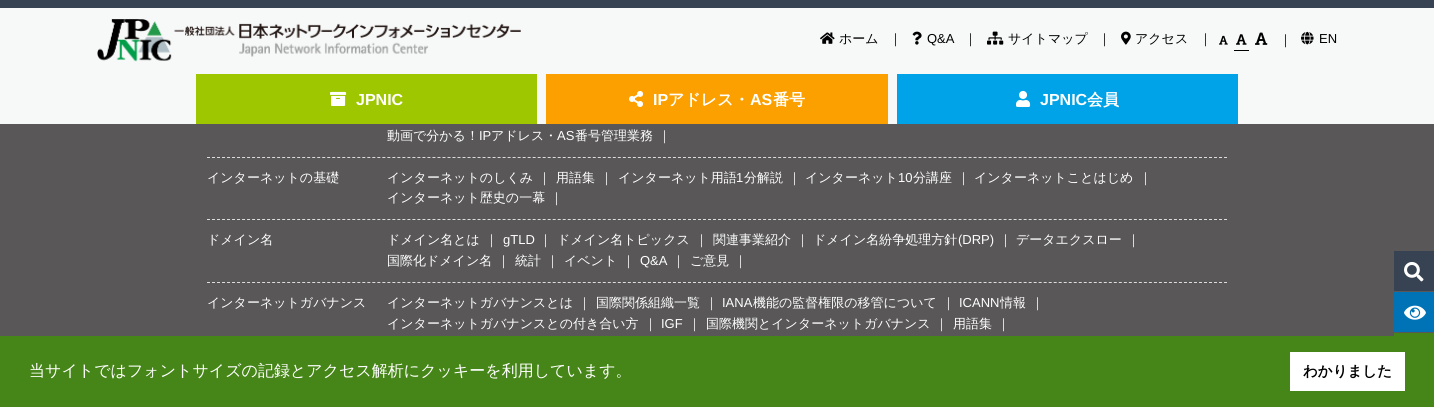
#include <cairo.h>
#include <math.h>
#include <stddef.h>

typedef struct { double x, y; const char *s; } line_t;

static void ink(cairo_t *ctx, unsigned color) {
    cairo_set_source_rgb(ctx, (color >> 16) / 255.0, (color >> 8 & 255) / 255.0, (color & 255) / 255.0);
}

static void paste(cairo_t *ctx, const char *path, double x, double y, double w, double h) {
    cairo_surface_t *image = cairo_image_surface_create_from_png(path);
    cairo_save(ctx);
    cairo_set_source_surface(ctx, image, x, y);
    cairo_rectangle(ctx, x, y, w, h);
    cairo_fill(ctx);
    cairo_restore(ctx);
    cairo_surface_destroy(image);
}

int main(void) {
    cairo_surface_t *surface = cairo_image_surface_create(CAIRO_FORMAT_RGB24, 1434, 407);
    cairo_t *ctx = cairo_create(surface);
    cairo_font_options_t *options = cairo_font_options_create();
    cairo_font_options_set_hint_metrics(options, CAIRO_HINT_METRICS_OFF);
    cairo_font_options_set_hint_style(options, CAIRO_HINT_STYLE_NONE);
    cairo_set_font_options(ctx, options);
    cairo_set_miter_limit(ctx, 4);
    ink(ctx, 0x595757);
    cairo_paint(ctx);
    ink(ctx, 0xF7F8F8);
    cairo_rectangle(ctx, 0, 8, 1434, 116);
    cairo_fill(ctx);
    ink(ctx, 0x374252);
    cairo_rectangle(ctx, 0, 0, 1434, 8);
    cairo_fill(ctx);
    paste(ctx, "media/1.png", 97, 19, 424, 43);
    paste(ctx, "media/2.png", 820, 32, 15, 12);
    cairo_select_font_face(ctx, "WenQuanYi Zen Hei Medium", CAIRO_FONT_SLANT_NORMAL, CAIRO_FONT_WEIGHT_NORMAL);
    cairo_set_font_size(ctx, 13);
    ink(ctx, 0x000000);
    cairo_move_to(ctx, 839, 43);
    cairo_show_text(ctx, "ホーム");
    cairo_move_to(ctx, 889, 43);
    cairo_show_text(ctx, "｜");
    paste(ctx, "media/3.png", 912, 31, 10, 14);
    cairo_select_font_face(ctx, "Liberation Sans", CAIRO_FONT_SLANT_NORMAL, CAIRO_FONT_WEIGHT_NORMAL);
    cairo_move_to(ctx, 927, 43);
    cairo_show_text(ctx, "Q&A");
    cairo_select_font_face(ctx, "WenQuanYi Zen Hei Medium", CAIRO_FONT_SLANT_NORMAL, CAIRO_FONT_WEIGHT_NORMAL);
    cairo_move_to(ctx, 964, 43);
    cairo_show_text(ctx, "｜");
    paste(ctx, "media/4.png", 987, 31, 17, 14);
    cairo_move_to(ctx, 1008, 43);
    cairo_show_text(ctx, "サイトマップ");
    cairo_move_to(ctx, 1098, 43);
    cairo_show_text(ctx, "｜");
    paste(ctx, "media/5.png", 1121, 31, 10, 14);
    cairo_move_to(ctx, 1135, 43);
    cairo_show_text(ctx, "アクセス");
    cairo_move_to(ctx, 1199, 43);
    cairo_show_text(ctx, "｜");
    paste(ctx, "media/6.png", 1219, 35, 9, 10);
    cairo_rectangle(ctx, 1234, 50, 15, 1);
    cairo_fill(ctx);
    paste(ctx, "media/7.png", 1236, 34, 11, 11);
    paste(ctx, "media/8.png", 1255, 32, 13, 13);
    cairo_move_to(ctx, 1279, 44);
    cairo_show_text(ctx, "｜");
    paste(ctx, "media/9.png", 1301, 31, 13, 14);
    cairo_select_font_face(ctx, "Liberation Sans", CAIRO_FONT_SLANT_NORMAL, CAIRO_FONT_WEIGHT_NORMAL);
    cairo_move_to(ctx, 1319, 43);
    cairo_show_text(ctx, "EN");
    ink(ctx, 0x9EC700);
    cairo_rectangle(ctx, 196, 74, 341, 50);
    cairo_fill(ctx);
    paste(ctx, "media/10.png", 330, 91, 17, 15);
    cairo_select_font_face(ctx, "Liberation Sans", CAIRO_FONT_SLANT_NORMAL, CAIRO_FONT_WEIGHT_BOLD);
    cairo_set_font_size(ctx, 16);
    ink(ctx, 0xFFFFFF);
    cairo_move_to(ctx, 356, 105);
    cairo_show_text(ctx, "JPNIC");
    ink(ctx, 0xFCA000);
    cairo_rectangle(ctx, 546, 74, 342, 50);
    cairo_fill(ctx);
    paste(ctx, "media/11.png", 629, 91, 14, 16);
    ink(ctx, 0xFFFFFF);
    cairo_move_to(ctx, 653, 105);
    cairo_show_text(ctx, "IP");
    cairo_select_font_face(ctx, "WenQuanYi Zen Hei", CAIRO_FONT_SLANT_NORMAL, CAIRO_FONT_WEIGHT_BOLD);
    cairo_move_to(ctx, 668, 105);
    cairo_show_text(ctx, "アドレス・");
    cairo_select_font_face(ctx, "Liberation Sans", CAIRO_FONT_SLANT_NORMAL, CAIRO_FONT_WEIGHT_BOLD);
    cairo_move_to(ctx, 750, 105);
    cairo_show_text(ctx, "AS");
    cairo_select_font_face(ctx, "WenQuanYi Zen Hei", CAIRO_FONT_SLANT_NORMAL, CAIRO_FONT_WEIGHT_BOLD);
    cairo_move_to(ctx, 773, 105);
    cairo_show_text(ctx, "番号");
    ink(ctx, 0x00A3E7);
    cairo_rectangle(ctx, 897, 74, 341, 50);
    cairo_fill(ctx);
    paste(ctx, "media/12.png", 1016, 90, 15, 17);
    cairo_select_font_face(ctx, "Liberation Sans", CAIRO_FONT_SLANT_NORMAL, CAIRO_FONT_WEIGHT_BOLD);
    ink(ctx, 0xFFFFFF);
    cairo_move_to(ctx, 1040, 105);
    cairo_show_text(ctx, "JPNIC");
    cairo_select_font_face(ctx, "WenQuanYi Zen Hei", CAIRO_FONT_SLANT_NORMAL, CAIRO_FONT_WEIGHT_BOLD);
    cairo_move_to(ctx, 1087, 105);
    cairo_show_text(ctx, "会員");
    cairo_new_path(ctx);
    cairo_move_to(ctx, 207, 157.5);
    cairo_line_to(ctx, 1227, 157.5);
    ink(ctx, 0xDCDDDD);
    cairo_set_line_width(ctx, 1);
    cairo_set_dash(ctx, (double[]){3, 2.01}, 2, 0);
    cairo_stroke(ctx);
    cairo_select_font_face(ctx, "WenQuanYi Zen Hei Medium", CAIRO_FONT_SLANT_NORMAL, CAIRO_FONT_WEIGHT_NORMAL);
    cairo_set_font_size(ctx, 13);
    ink(ctx, 0xFFFFFF);
    cairo_move_to(ctx, 387, 140);
    cairo_show_text(ctx, "動画で分かる！");
    cairo_select_font_face(ctx, "Liberation Sans", CAIRO_FONT_SLANT_NORMAL, CAIRO_FONT_WEIGHT_NORMAL);
    cairo_move_to(ctx, 479, 140);
    cairo_show_text(ctx, "IP");
    cairo_select_font_face(ctx, "WenQuanYi Zen Hei Medium", CAIRO_FONT_SLANT_NORMAL, CAIRO_FONT_WEIGHT_NORMAL);
    cairo_move_to(ctx, 491, 140);
    cairo_show_text(ctx, "アドレス・");
    cairo_select_font_face(ctx, "Liberation Sans", CAIRO_FONT_SLANT_NORMAL, CAIRO_FONT_WEIGHT_NORMAL);
    cairo_move_to(ctx, 557, 140);
    cairo_show_text(ctx, "AS");
    cairo_select_font_face(ctx, "WenQuanYi Zen Hei Medium", CAIRO_FONT_SLANT_NORMAL, CAIRO_FONT_WEIGHT_NORMAL);
    cairo_move_to(ctx, 575, 140);
    cairo_show_text(ctx, "番号管理業務");
    cairo_move_to(ctx, 658, 140);
    cairo_show_text(ctx, "｜");
    cairo_new_path(ctx);
    cairo_move_to(ctx, 207, 219.5);
    cairo_line_to(ctx, 1227, 219.5);
    ink(ctx, 0xDCDDDD);
    cairo_stroke(ctx);
    ink(ctx, 0xFFFFFF);
    {
        static const line_t items[] = {
            {207, 182, "インターネットの基礎"},
            {387, 182, "インターネットのしくみ"},
            {538, 182, "｜"},
            {556, 182, "用語集"},
            {600, 182, "｜"},
            {618, 182, "インターネット用語"},
        };
        for (size_t i = 0; i < sizeof items / sizeof *items; i++) {
            cairo_move_to(ctx, items[i].x, items[i].y);
            cairo_show_text(ctx, items[i].s);
        }
    }
    cairo_select_font_face(ctx, "Liberation Sans", CAIRO_FONT_SLANT_NORMAL, CAIRO_FONT_WEIGHT_NORMAL);
    cairo_move_to(ctx, 736, 182);
    cairo_show_text(ctx, "1");
    cairo_select_font_face(ctx, "WenQuanYi Zen Hei Medium", CAIRO_FONT_SLANT_NORMAL, CAIRO_FONT_WEIGHT_NORMAL);
    {
        static const line_t items[] = {
            {744, 182, "分解説"},
            {788, 182, "｜"},
            {805, 182, "インターネット"},
        };
        for (size_t i = 0; i < sizeof items / sizeof *items; i++) {
            cairo_move_to(ctx, items[i].x, items[i].y);
            cairo_show_text(ctx, items[i].s);
        }
    }
    cairo_select_font_face(ctx, "Liberation Sans", CAIRO_FONT_SLANT_NORMAL, CAIRO_FONT_WEIGHT_NORMAL);
    cairo_move_to(ctx, 898, 182);
    cairo_show_text(ctx, "10");
    cairo_select_font_face(ctx, "WenQuanYi Zen Hei Medium", CAIRO_FONT_SLANT_NORMAL, CAIRO_FONT_WEIGHT_NORMAL);
    {
        static const line_t items[] = {
            {913, 182, "分講座"},
            {957, 182, "｜"},
            {974, 182, "インターネットことはじめ"},
            {1139, 182, "｜"},
            {387, 202, "インターネット歴史の一幕"},
            {550, 202, "｜"},
        };
        for (size_t i = 0; i < sizeof items / sizeof *items; i++) {
            cairo_move_to(ctx, items[i].x, items[i].y);
            cairo_show_text(ctx, items[i].s);
        }
    }
    cairo_new_path(ctx);
    cairo_move_to(ctx, 207, 282.5);
    cairo_line_to(ctx, 1227, 282.5);
    ink(ctx, 0xDCDDDD);
    cairo_stroke(ctx);
    ink(ctx, 0xFFFFFF);
    {
        static const line_t items[] = {
            {207, 244, "ドメイン名"},
            {387, 244, "ドメイン名とは"},
            {485, 244, "｜"},
        };
        for (size_t i = 0; i < sizeof items / sizeof *items; i++) {
            cairo_move_to(ctx, items[i].x, items[i].y);
            cairo_show_text(ctx, items[i].s);
        }
    }
    cairo_select_font_face(ctx, "Liberation Sans", CAIRO_FONT_SLANT_NORMAL, CAIRO_FONT_WEIGHT_NORMAL);
    cairo_move_to(ctx, 503, 244);
    cairo_show_text(ctx, "gTLD");
    cairo_select_font_face(ctx, "WenQuanYi Zen Hei Medium", CAIRO_FONT_SLANT_NORMAL, CAIRO_FONT_WEIGHT_NORMAL);
    {
        static const line_t items[] = {
            {539, 244, "｜"},
            {557, 244, "ドメイン名トピックス"},
            {695, 244, "｜"},
            {713, 244, "関連事業紹介"},
            {796, 244, "｜"},
            {813, 244, "ドメイン名紛争処理方針"},
        };
        for (size_t i = 0; i < sizeof items / sizeof *items; i++) {
            cairo_move_to(ctx, items[i].x, items[i].y);
            cairo_show_text(ctx, items[i].s);
        }
    }
    cairo_select_font_face(ctx, "Liberation Sans", CAIRO_FONT_SLANT_NORMAL, CAIRO_FONT_WEIGHT_NORMAL);
    cairo_move_to(ctx, 958, 244);
    cairo_show_text(ctx, "(DRP)");
    cairo_select_font_face(ctx, "WenQuanYi Zen Hei Medium", CAIRO_FONT_SLANT_NORMAL, CAIRO_FONT_WEIGHT_NORMAL);
    {
        static const line_t items[] = {
            {999, 244, "｜"},
            {1016, 244, "データエクスロー"},
            {1127, 244, "｜"},
            {387, 265, "国際化ドメイン名"},
            {497, 265, "｜"},
            {515, 265, "統計"},
            {546, 265, "｜"},
            {564, 265, "イベント"},
            {622, 265, "｜"},
        };
        for (size_t i = 0; i < sizeof items / sizeof *items; i++) {
            cairo_move_to(ctx, items[i].x, items[i].y);
            cairo_show_text(ctx, items[i].s);
        }
    }
    cairo_select_font_face(ctx, "Liberation Sans", CAIRO_FONT_SLANT_NORMAL, CAIRO_FONT_WEIGHT_NORMAL);
    cairo_move_to(ctx, 640, 265);
    cairo_show_text(ctx, "Q&A");
    cairo_select_font_face(ctx, "WenQuanYi Zen Hei Medium", CAIRO_FONT_SLANT_NORMAL, CAIRO_FONT_WEIGHT_NORMAL);
    {
        static const line_t items[] = {
            {672, 265, "｜"},
            {690, 265, "ご意見"},
            {734, 265, "｜"},
            {207, 307, "インターネットガバナンス"},
            {387, 307, "インターネットガバナンスとは"},
            {578, 307, "｜"},
            {596, 307, "国際関係組織一覧"},
            {705, 307, "｜"},
        };
        for (size_t i = 0; i < sizeof items / sizeof *items; i++) {
            cairo_move_to(ctx, items[i].x, items[i].y);
            cairo_show_text(ctx, items[i].s);
        }
    }
    cairo_select_font_face(ctx, "Liberation Sans", CAIRO_FONT_SLANT_NORMAL, CAIRO_FONT_WEIGHT_NORMAL);
    cairo_move_to(ctx, 722, 307);
    cairo_show_text(ctx, "IANA");
    cairo_select_font_face(ctx, "WenQuanYi Zen Hei Medium", CAIRO_FONT_SLANT_NORMAL, CAIRO_FONT_WEIGHT_NORMAL);
    cairo_move_to(ctx, 753, 307);
    cairo_show_text(ctx, "機能の監督権限の移管について");
    cairo_move_to(ctx, 942, 307);
    cairo_show_text(ctx, "｜");
    cairo_select_font_face(ctx, "Liberation Sans", CAIRO_FONT_SLANT_NORMAL, CAIRO_FONT_WEIGHT_NORMAL);
    cairo_move_to(ctx, 959, 307);
    cairo_show_text(ctx, "ICANN");
    cairo_select_font_face(ctx, "WenQuanYi Zen Hei Medium", CAIRO_FONT_SLANT_NORMAL, CAIRO_FONT_WEIGHT_NORMAL);
    {
        static const line_t items[] = {
            {1000, 307, "情報"},
            {1031, 307, "｜"},
            {387, 328, "インターネットガバナンスとの付き合い方"},
            {644, 328, "｜"},
        };
        for (size_t i = 0; i < sizeof items / sizeof *items; i++) {
            cairo_move_to(ctx, items[i].x, items[i].y);
            cairo_show_text(ctx, items[i].s);
        }
    }
    cairo_select_font_face(ctx, "Liberation Sans", CAIRO_FONT_SLANT_NORMAL, CAIRO_FONT_WEIGHT_NORMAL);
    cairo_move_to(ctx, 661, 328);
    cairo_show_text(ctx, "IGF");
    cairo_select_font_face(ctx, "WenQuanYi Zen Hei Medium", CAIRO_FONT_SLANT_NORMAL, CAIRO_FONT_WEIGHT_NORMAL);
    {
        static const line_t items[] = {
            {688, 328, "｜"},
            {706, 328, "国際機関とインターネットガバナンス"},
            {935, 328, "｜"},
            {953, 328, "用語集"},
            {997, 328, "｜"},
        };
        for (size_t i = 0; i < sizeof items / sizeof *items; i++) {
            cairo_move_to(ctx, items[i].x, items[i].y);
            cairo_show_text(ctx, items[i].s);
        }
    }
    ink(ctx, 0x374252);
    cairo_rectangle(ctx, 1394, 251, 40, 40);
    cairo_fill(ctx);
    paste(ctx, "media/13.png", 1404, 262, 20, 20);
    ink(ctx, 0x0072B6);
    cairo_rectangle(ctx, 1394, 292, 40, 40);
    cairo_fill(ctx);
    paste(ctx, "media/14.png", 1404, 305, 22, 15);
    ink(ctx, 0x468618);
    cairo_rectangle(ctx, 1394, 333, 40, 3);
    cairo_fill(ctx);
    cairo_rectangle(ctx, 0, 336, 1434, 71);
    cairo_fill(ctx);
    cairo_set_font_size(ctx, 16);
    ink(ctx, 0xFFFFFF);
    cairo_move_to(ctx, 29, 376);
    cairo_show_text(ctx, "当サイトではフォントサイズの記録とアクセス解析にクッキーを利用しています。");
    cairo_rectangle(ctx, 1290, 352, 115, 39);
    cairo_fill(ctx);
    cairo_select_font_face(ctx, "WenQuanYi Zen Hei", CAIRO_FONT_SLANT_NORMAL, CAIRO_FONT_WEIGHT_BOLD);
    cairo_set_font_size(ctx, 14.5);
    ink(ctx, 0x000000);
    cairo_move_to(ctx, 1303, 376);
    cairo_show_text(ctx, "わかりました");
    cairo_surface_write_to_png(surface, "image.png");
    cairo_font_options_destroy(options);
    cairo_destroy(ctx);
    cairo_surface_destroy(surface);
    return 0;
}
